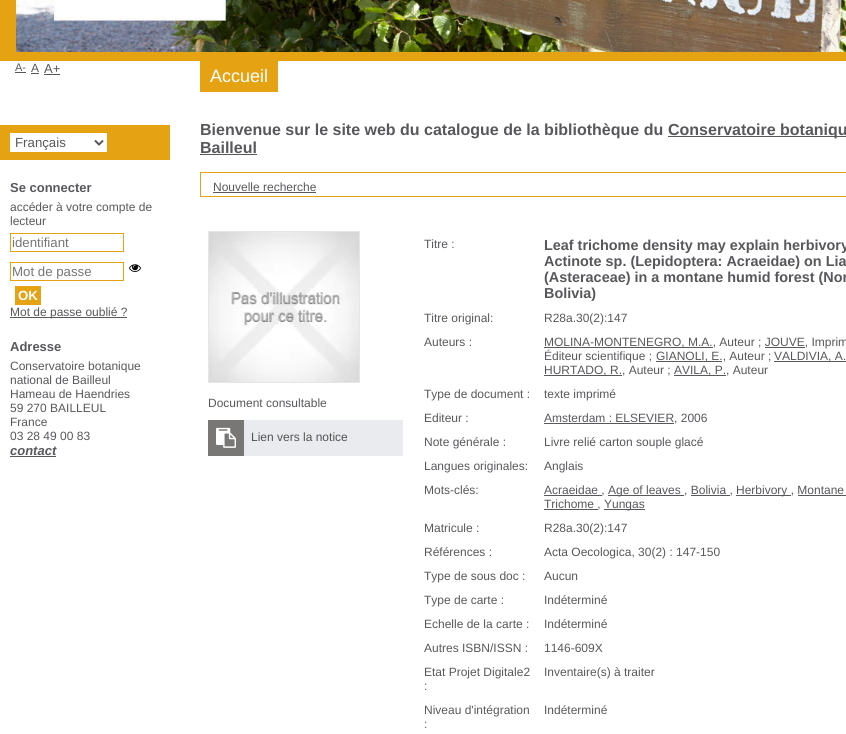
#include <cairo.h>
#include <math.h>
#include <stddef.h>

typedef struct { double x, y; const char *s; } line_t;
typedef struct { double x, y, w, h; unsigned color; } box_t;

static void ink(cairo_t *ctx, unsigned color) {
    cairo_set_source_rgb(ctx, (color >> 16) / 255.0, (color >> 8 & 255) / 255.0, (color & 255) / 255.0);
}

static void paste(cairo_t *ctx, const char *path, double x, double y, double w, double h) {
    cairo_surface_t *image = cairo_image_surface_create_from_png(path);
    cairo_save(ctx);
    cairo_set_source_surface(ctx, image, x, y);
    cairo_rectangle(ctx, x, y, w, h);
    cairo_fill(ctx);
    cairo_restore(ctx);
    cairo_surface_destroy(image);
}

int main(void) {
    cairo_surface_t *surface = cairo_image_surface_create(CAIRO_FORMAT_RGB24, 846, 734);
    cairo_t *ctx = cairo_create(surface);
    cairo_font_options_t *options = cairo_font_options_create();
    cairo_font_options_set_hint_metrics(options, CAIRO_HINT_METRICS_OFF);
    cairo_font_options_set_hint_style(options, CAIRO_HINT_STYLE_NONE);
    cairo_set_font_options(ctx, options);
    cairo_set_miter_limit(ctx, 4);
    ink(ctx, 0xFFFFFF);
    cairo_paint(ctx);
    cairo_select_font_face(ctx, "Liberation Sans", CAIRO_FONT_SLANT_NORMAL, CAIRO_FONT_WEIGHT_NORMAL);
    cairo_set_font_size(ctx, 11);
    ink(ctx, 0x58585C);
    cairo_move_to(ctx, 15, 71);
    cairo_show_text(ctx, "A-");
    cairo_rectangle(ctx, 15, 72, 11, 1);
    cairo_fill(ctx);
    cairo_set_font_size(ctx, 12);
    cairo_move_to(ctx, 31, 72);
    cairo_show_text(ctx, "A");
    cairo_rectangle(ctx, 31, 73, 8, 1);
    cairo_fill(ctx);
    cairo_set_font_size(ctx, 13);
    cairo_move_to(ctx, 44, 73);
    cairo_show_text(ctx, "A+");
    {
        static const box_t items[] = {
            {44, 74, 16, 1, 0x58585C},
            {0, 125, 170, 35, 0xE5A213},
            {10, 133, 97, 19, 0xFFFFFF},
        };
        for (size_t i = 0; i < sizeof items / sizeof *items; i++) {
            ink(ctx, items[i].color);
            cairo_rectangle(ctx, items[i].x, items[i].y, items[i].w, items[i].h);
            cairo_fill(ctx);
        }
    }
    cairo_new_path(ctx);
    cairo_move_to(ctx, 95, 140.5);
    cairo_line_to(ctx, 99, 144.5);
    cairo_line_to(ctx, 103, 140.5);
    ink(ctx, 0x58585C);
    cairo_stroke(ctx);
    cairo_set_font_size(ctx, 13.25);
    cairo_move_to(ctx, 15, 147);
    cairo_show_text(ctx, "Français");
    cairo_select_font_face(ctx, "Liberation Sans", CAIRO_FONT_SLANT_NORMAL, CAIRO_FONT_WEIGHT_BOLD);
    cairo_set_font_size(ctx, 13);
    cairo_move_to(ctx, 10, 192);
    cairo_show_text(ctx, "Se connecter");
    cairo_select_font_face(ctx, "Liberation Sans", CAIRO_FONT_SLANT_NORMAL, CAIRO_FONT_WEIGHT_NORMAL);
    cairo_set_font_size(ctx, 12);
    cairo_move_to(ctx, 10, 211);
    cairo_show_text(ctx, "accéder à votre compte de");
    cairo_move_to(ctx, 10, 225);
    cairo_show_text(ctx, "lecteur");
    cairo_rectangle(ctx, 10.5, 233.5, 113, 18);
    ink(ctx, 0xE5A213);
    cairo_set_line_width(ctx, 1);
    cairo_stroke(ctx);
    cairo_set_font_size(ctx, 13.25);
    ink(ctx, 0x757575);
    cairo_move_to(ctx, 12, 247);
    cairo_show_text(ctx, "identifiant");
    cairo_rectangle(ctx, 10.5, 262.5, 113, 18);
    ink(ctx, 0xE5A213);
    cairo_stroke(ctx);
    ink(ctx, 0x757575);
    cairo_move_to(ctx, 12, 276);
    cairo_show_text(ctx, "Mot de passe");
    paste(ctx, "media/1.png", 129, 264, 12, 8);
    ink(ctx, 0xE5A213);
    cairo_rectangle(ctx, 15, 286, 26, 19);
    cairo_fill(ctx);
    cairo_select_font_face(ctx, "Liberation Sans", CAIRO_FONT_SLANT_NORMAL, CAIRO_FONT_WEIGHT_BOLD);
    ink(ctx, 0xFFFFFF);
    cairo_move_to(ctx, 18, 300);
    cairo_show_text(ctx, "OK");
    ink(ctx, 0x58585C);
    cairo_rectangle(ctx, 10, 317, 117, 1);
    cairo_fill(ctx);
    cairo_select_font_face(ctx, "Liberation Sans", CAIRO_FONT_SLANT_NORMAL, CAIRO_FONT_WEIGHT_NORMAL);
    cairo_set_font_size(ctx, 12);
    cairo_move_to(ctx, 10, 316);
    cairo_show_text(ctx, "Mot de passe oublié ?");
    cairo_select_font_face(ctx, "Liberation Sans", CAIRO_FONT_SLANT_NORMAL, CAIRO_FONT_WEIGHT_BOLD);
    cairo_set_font_size(ctx, 13);
    cairo_move_to(ctx, 10, 351);
    cairo_show_text(ctx, "Adresse");
    cairo_select_font_face(ctx, "Liberation Sans", CAIRO_FONT_SLANT_NORMAL, CAIRO_FONT_WEIGHT_NORMAL);
    cairo_set_font_size(ctx, 12);
    {
        static const line_t items[] = {
            {10, 370, "Conservatoire botanique"},
            {10, 384, "national de Bailleul"},
            {10, 398, "Hameau de Haendries"},
            {10, 412, "59 270 BAILLEUL"},
            {10, 426, "France"},
            {10, 440, "03 28 49 00 83"},
        };
        for (size_t i = 0; i < sizeof items / sizeof *items; i++) {
            cairo_move_to(ctx, items[i].x, items[i].y);
            cairo_show_text(ctx, items[i].s);
        }
    }
    cairo_select_font_face(ctx, "Liberation Sans", CAIRO_FONT_SLANT_ITALIC, CAIRO_FONT_WEIGHT_BOLD);
    cairo_set_font_size(ctx, 13);
    cairo_move_to(ctx, 10, 455);
    cairo_show_text(ctx, "contact");
    cairo_rectangle(ctx, 10, 456, 46, 1);
    cairo_fill(ctx);
    ink(ctx, 0xE5A213);
    cairo_rectangle(ctx, 0, 0, 846, 61);
    cairo_fill(ctx);
    paste(ctx, "media/2.png", 16, 0, 830, 52);
    cairo_rectangle(ctx, 200, 61, 78, 31);
    cairo_fill(ctx);
    cairo_select_font_face(ctx, "Liberation Sans", CAIRO_FONT_SLANT_NORMAL, CAIRO_FONT_WEIGHT_NORMAL);
    cairo_set_font_size(ctx, 18);
    ink(ctx, 0xFFFFFF);
    cairo_move_to(ctx, 210, 82);
    cairo_show_text(ctx, "Accueil");
    cairo_select_font_face(ctx, "Liberation Sans", CAIRO_FONT_SLANT_NORMAL, CAIRO_FONT_WEIGHT_BOLD);
    cairo_set_font_size(ctx, 16);
    ink(ctx, 0x58585C);
    cairo_move_to(ctx, 200, 135);
    cairo_show_text(ctx, "Bienvenue sur le site web du catalogue de la bibliothèque du");
    cairo_rectangle(ctx, 668, 136, 178, 1);
    cairo_fill(ctx);
    cairo_move_to(ctx, 668, 135);
    cairo_show_text(ctx, "Conservatoire botaniqu");
    cairo_move_to(ctx, 200, 153);
    cairo_show_text(ctx, "Bailleul");
    cairo_rectangle(ctx, 200, 154, 57, 1);
    cairo_fill(ctx);
    cairo_rectangle(ctx, 200.5, 172.5, 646, 24);
    ink(ctx, 0xE5A213);
    cairo_stroke(ctx);
    cairo_select_font_face(ctx, "Liberation Sans", CAIRO_FONT_SLANT_NORMAL, CAIRO_FONT_WEIGHT_NORMAL);
    cairo_set_font_size(ctx, 12);
    ink(ctx, 0x58585C);
    cairo_move_to(ctx, 213, 191);
    cairo_show_text(ctx, "Nouvelle recherche");
    cairo_rectangle(ctx, 213, 192, 103, 1);
    cairo_fill(ctx);
    cairo_rectangle(ctx, 208.5, 231.5, 151, 151);
    ink(ctx, 0xE6E6E6);
    cairo_stroke(ctx);
    paste(ctx, "media/3.png", 209, 232, 150, 150);
    ink(ctx, 0x58585C);
    cairo_move_to(ctx, 208, 407);
    cairo_show_text(ctx, "Document consultable");
    ink(ctx, 0x797676);
    cairo_rectangle(ctx, 208, 420, 36, 36);
    cairo_fill(ctx);
    paste(ctx, "media/4.png", 216, 427, 20, 21);
    ink(ctx, 0xE9EBEE);
    cairo_rectangle(ctx, 244, 420, 159, 36);
    cairo_fill(ctx);
    ink(ctx, 0x525252);
    cairo_move_to(ctx, 251, 441);
    cairo_show_text(ctx, "Lien vers la notice");
    ink(ctx, 0x58585C);
    cairo_move_to(ctx, 424, 248);
    cairo_show_text(ctx, "Titre :");
    cairo_select_font_face(ctx, "Liberation Sans", CAIRO_FONT_SLANT_NORMAL, CAIRO_FONT_WEIGHT_BOLD);
    cairo_set_font_size(ctx, 14.4);
    {
        static const line_t items[] = {
            {544, 250, "Leaf trichome density may explain herbivory"},
            {544, 266, "Actinote sp. (Lepidoptera: Acraeidae) on Lia"},
            {544, 282, "(Asteraceae) in a montane humid forest (Nor"},
            {544, 298, "Bolivia)"},
        };
        for (size_t i = 0; i < sizeof items / sizeof *items; i++) {
            cairo_move_to(ctx, items[i].x, items[i].y);
            cairo_show_text(ctx, items[i].s);
        }
    }
    cairo_select_font_face(ctx, "Liberation Sans", CAIRO_FONT_SLANT_NORMAL, CAIRO_FONT_WEIGHT_NORMAL);
    cairo_set_font_size(ctx, 12);
    {
        static const line_t items[] = {
            {424, 322, "Titre original:"},
            {544, 322, "R28a.30(2):147"},
            {424, 346, "Auteurs :"},
        };
        for (size_t i = 0; i < sizeof items / sizeof *items; i++) {
            cairo_move_to(ctx, items[i].x, items[i].y);
            cairo_show_text(ctx, items[i].s);
        }
    }
    cairo_rectangle(ctx, 544, 347, 169, 1);
    cairo_fill(ctx);
    cairo_move_to(ctx, 544, 346);
    cairo_show_text(ctx, "MOLINA-MONTENEGRO, M.A., Auteur ; JOUVE, Imprim");
    cairo_rectangle(ctx, 765, 347, 40, 1);
    cairo_fill(ctx);
    cairo_move_to(ctx, 544, 360);
    cairo_show_text(ctx, "Éditeur scientifique ;");
    cairo_rectangle(ctx, 656, 361, 66, 1);
    cairo_fill(ctx);
    cairo_move_to(ctx, 656, 360);
    cairo_show_text(ctx, "GIANOLI, E., Auteur ;");
    cairo_rectangle(ctx, 774, 361, 72, 1);
    cairo_fill(ctx);
    cairo_move_to(ctx, 774, 360);
    cairo_show_text(ctx, "VALDIVIA, A.");
    cairo_rectangle(ctx, 544, 375, 78, 1);
    cairo_fill(ctx);
    cairo_move_to(ctx, 544, 374);
    cairo_show_text(ctx, "HURTADO, R., Auteur ;");
    cairo_rectangle(ctx, 674, 375, 52, 1);
    cairo_fill(ctx);
    {
        static const line_t items[] = {
            {674, 374, "AVILA, P., Auteur"},
            {424, 398, "Type de document :"},
            {544, 398, "texte imprimé"},
            {424, 422, "Editeur :"},
        };
        for (size_t i = 0; i < sizeof items / sizeof *items; i++) {
            cairo_move_to(ctx, items[i].x, items[i].y);
            cairo_show_text(ctx, items[i].s);
        }
    }
    cairo_rectangle(ctx, 544, 423, 130, 1);
    cairo_fill(ctx);
    {
        static const line_t items[] = {
            {544, 422, "Amsterdam : ELSEVIER, 2006"},
            {424, 446, "Note générale :"},
            {544, 446, "Livre relié carton souple glacé"},
            {424, 470, "Langues originales:"},
            {544, 470, "Anglais"},
            {424, 494, "Mots-clés:"},
        };
        for (size_t i = 0; i < sizeof items / sizeof *items; i++) {
            cairo_move_to(ctx, items[i].x, items[i].y);
            cairo_show_text(ctx, items[i].s);
        }
    }
    cairo_rectangle(ctx, 544, 495, 58, 1);
    cairo_fill(ctx);
    cairo_move_to(ctx, 544, 494);
    cairo_show_text(ctx, "Acraeidae ,");
    cairo_rectangle(ctx, 608, 495, 76, 1);
    cairo_fill(ctx);
    cairo_move_to(ctx, 608, 494);
    cairo_show_text(ctx, "Age of leaves , Bolivia ,");
    cairo_rectangle(ctx, 736, 495, 55, 1);
    cairo_fill(ctx);
    cairo_move_to(ctx, 736, 494);
    cairo_show_text(ctx, "Herbivory , Montane");
    {
        static const box_t items[] = {
            {691, 495, 39, 1, 0x58585C},
            {798, 495, 48, 1, 0x58585C},
            {544, 509, 54, 1, 0x58585C},
        };
        for (size_t i = 0; i < sizeof items / sizeof *items; i++) {
            ink(ctx, items[i].color);
            cairo_rectangle(ctx, items[i].x, items[i].y, items[i].w, items[i].h);
            cairo_fill(ctx);
        }
    }
    cairo_move_to(ctx, 544, 508);
    cairo_show_text(ctx, "Trichome ,");
    cairo_rectangle(ctx, 604, 509, 41, 1);
    cairo_fill(ctx);
    {
        static const line_t items[] = {
            {604, 508, "Yungas"},
            {424, 532, "Matricule :"},
            {544, 532, "R28a.30(2):147"},
            {424, 556, "Références :"},
            {544, 556, "Acta Oecologica, 30(2) : 147-150"},
            {424, 580, "Type de sous doc :"},
            {544, 580, "Aucun"},
            {424, 604, "Type de carte :"},
            {544, 604, "Indéterminé"},
            {424, 628, "Echelle de la carte :"},
            {544, 628, "Indéterminé"},
            {424, 652, "Autres ISBN/ISSN :"},
            {544, 652, "1146-609X"},
            {424, 676, "Etat Projet Digitale2"},
            {424, 690, ":"},
            {544, 676, "Inventaire(s) à traiter"},
            {424, 714, "Niveau d'intégration"},
            {424, 728, ":"},
            {544, 714, "Indéterminé"},
        };
        for (size_t i = 0; i < sizeof items / sizeof *items; i++) {
            cairo_move_to(ctx, items[i].x, items[i].y);
            cairo_show_text(ctx, items[i].s);
        }
    }
    cairo_surface_write_to_png(surface, "image.png");
    cairo_font_options_destroy(options);
    cairo_destroy(ctx);
    cairo_surface_destroy(surface);
    return 0;
}
